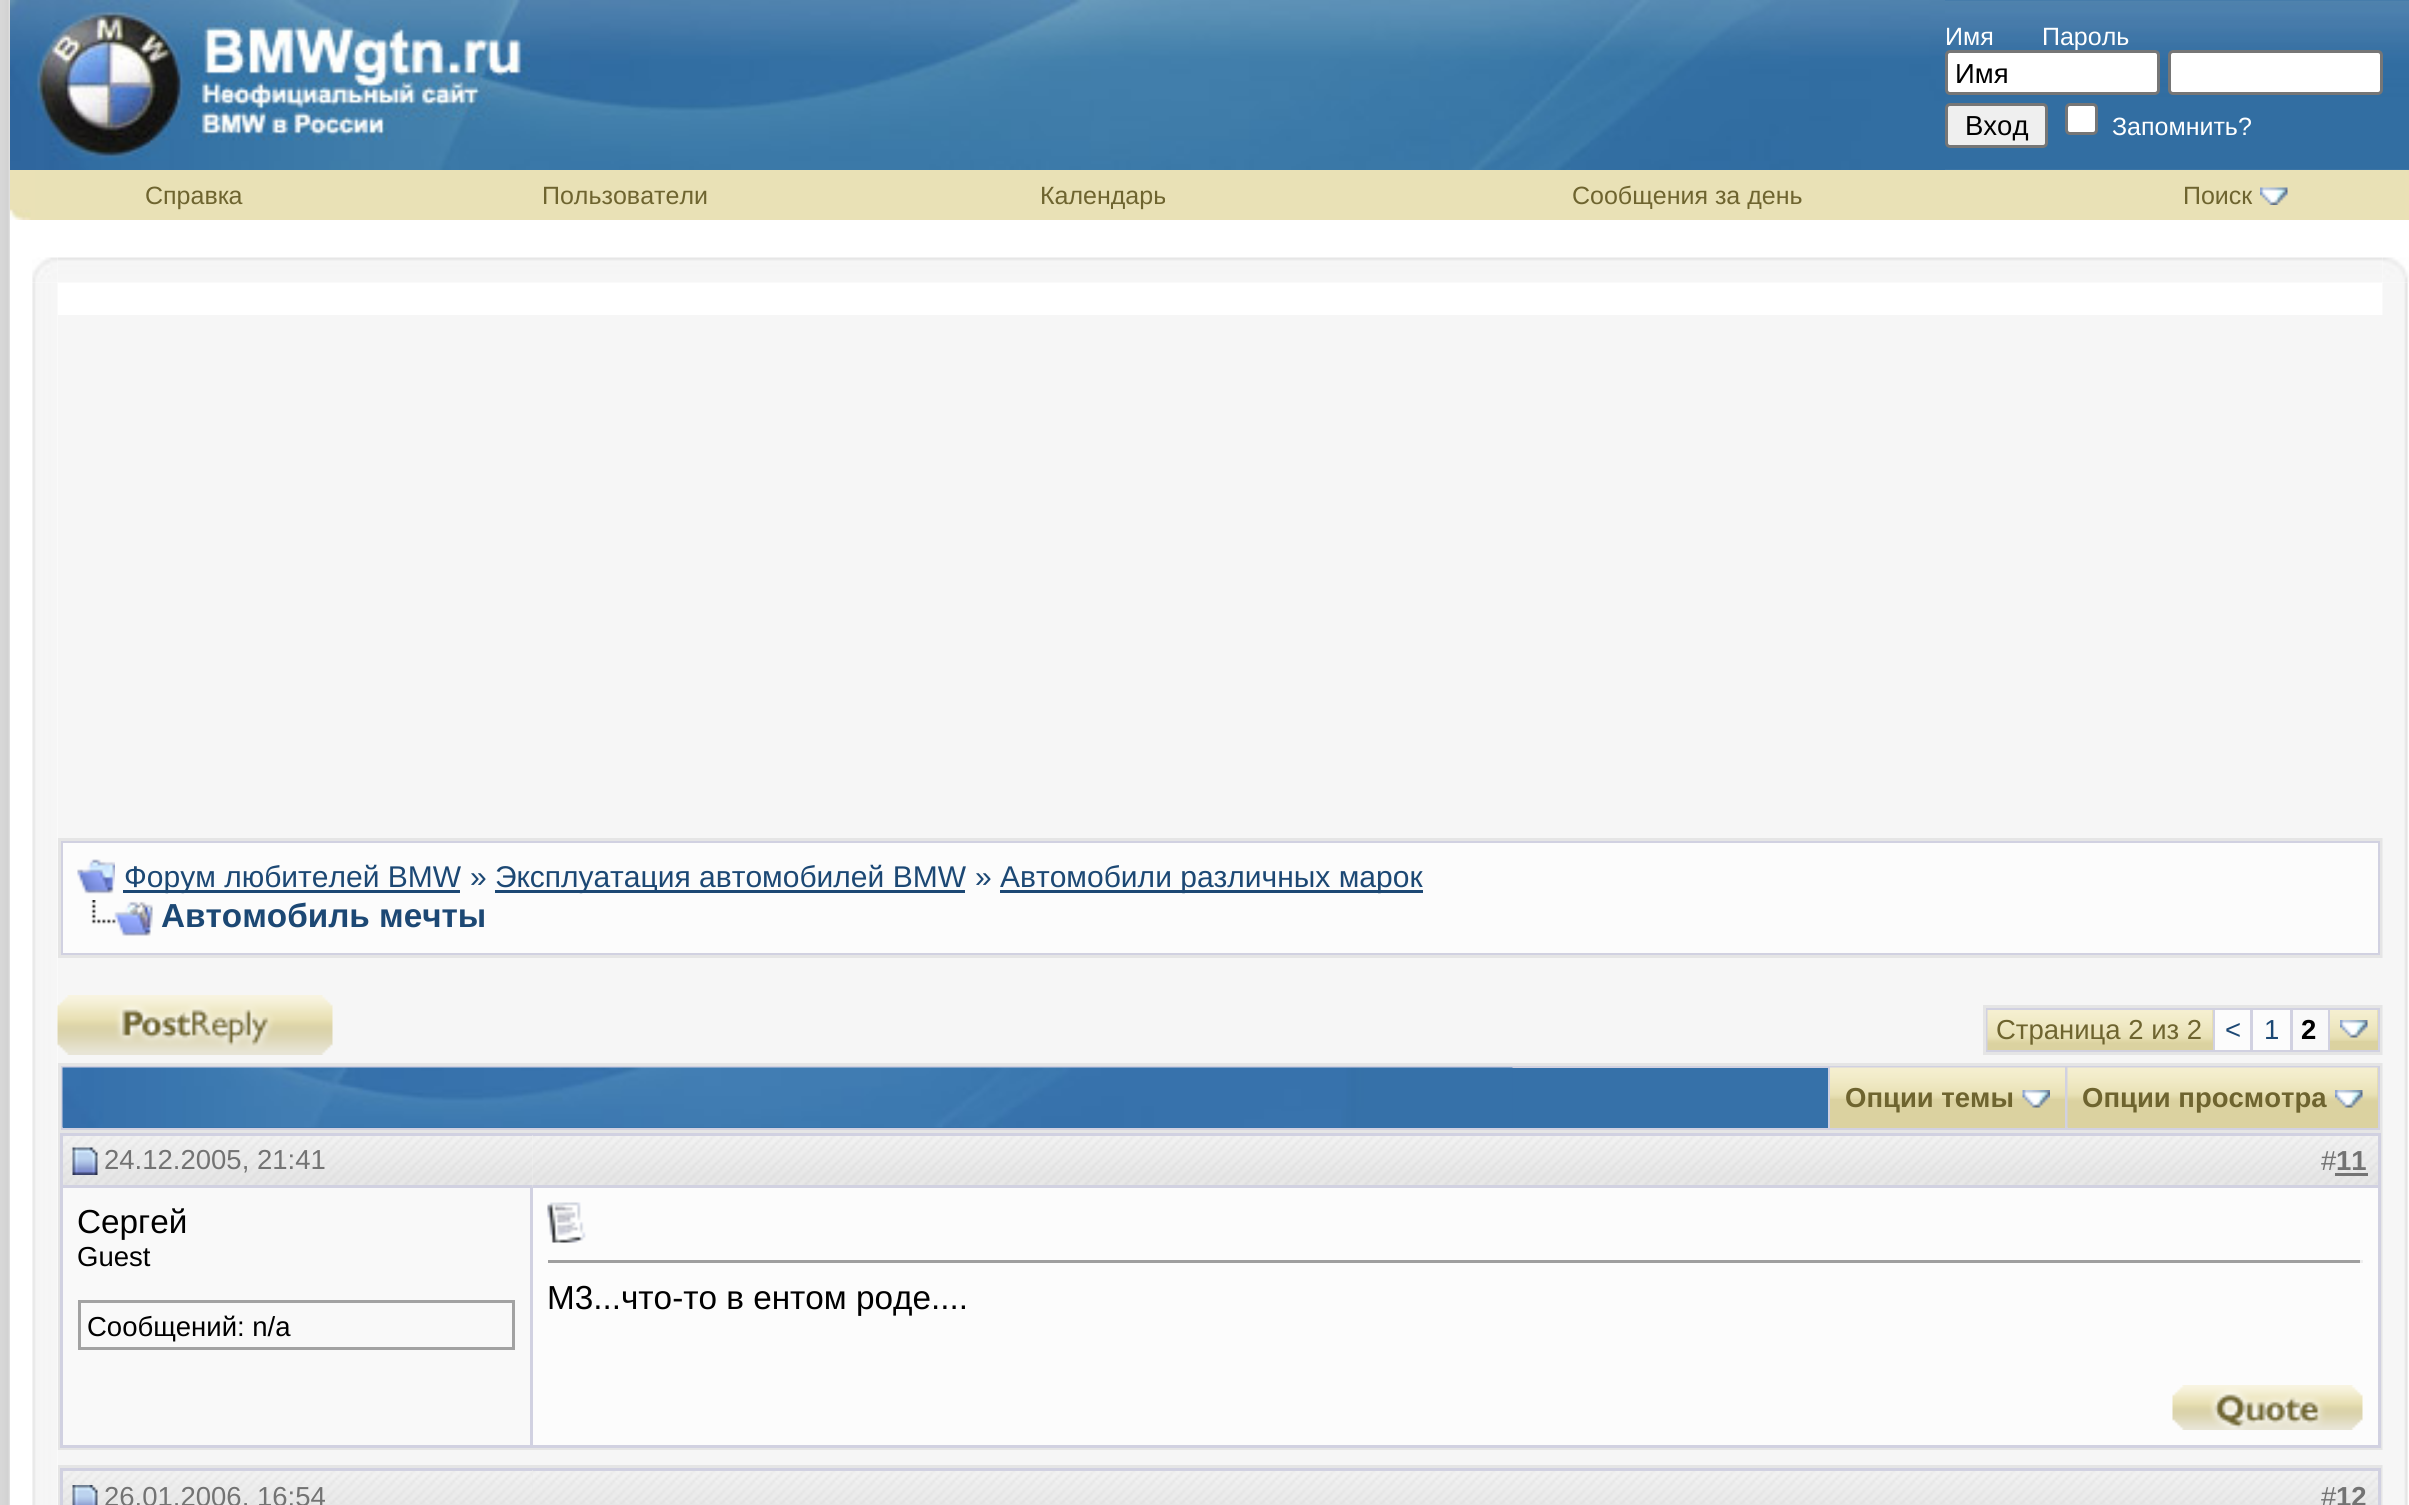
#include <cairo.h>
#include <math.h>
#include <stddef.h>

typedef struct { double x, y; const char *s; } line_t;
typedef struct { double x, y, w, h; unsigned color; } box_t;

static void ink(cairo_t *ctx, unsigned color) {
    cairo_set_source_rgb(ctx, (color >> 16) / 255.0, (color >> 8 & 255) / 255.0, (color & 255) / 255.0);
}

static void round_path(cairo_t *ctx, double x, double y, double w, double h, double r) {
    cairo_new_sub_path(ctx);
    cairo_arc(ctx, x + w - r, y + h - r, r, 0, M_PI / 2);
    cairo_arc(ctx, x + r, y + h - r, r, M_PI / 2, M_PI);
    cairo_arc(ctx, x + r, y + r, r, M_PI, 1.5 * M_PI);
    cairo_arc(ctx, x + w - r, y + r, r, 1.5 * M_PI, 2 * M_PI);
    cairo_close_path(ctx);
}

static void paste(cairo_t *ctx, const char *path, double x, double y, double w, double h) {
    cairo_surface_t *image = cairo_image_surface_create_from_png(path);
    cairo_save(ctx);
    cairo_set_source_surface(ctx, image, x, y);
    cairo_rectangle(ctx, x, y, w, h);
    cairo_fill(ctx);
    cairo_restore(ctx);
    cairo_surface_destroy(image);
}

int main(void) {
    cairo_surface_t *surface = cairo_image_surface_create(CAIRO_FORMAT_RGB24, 2409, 1505);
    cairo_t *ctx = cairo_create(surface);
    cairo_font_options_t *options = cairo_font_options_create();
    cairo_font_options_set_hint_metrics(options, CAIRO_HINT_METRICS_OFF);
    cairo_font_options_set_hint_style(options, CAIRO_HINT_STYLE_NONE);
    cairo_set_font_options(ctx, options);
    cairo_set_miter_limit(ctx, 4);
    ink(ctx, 0xFFFFFF);
    cairo_paint(ctx);
    paste(ctx, "media/1.png", 0, 0, 10, 1505);
    paste(ctx, "media/2.png", 1945, 0, 464, 170);
    paste(ctx, "media/3.png", 10, 0, 520, 170);
    paste(ctx, "media/4.png", 530, 0, 1415, 170);
    cairo_select_font_face(ctx, "Liberation Sans", CAIRO_FONT_SLANT_NORMAL, CAIRO_FONT_WEIGHT_NORMAL);
    cairo_set_font_size(ctx, 25);
    ink(ctx, 0xFFFFFF);
    cairo_move_to(ctx, 1945, 45);
    cairo_show_text(ctx, "Имя");
    cairo_move_to(ctx, 2042, 45);
    cairo_show_text(ctx, "Пароль");
    round_path(ctx, 1946.5, 51.5, 212, 42, 3.5);
    cairo_fill_preserve(ctx);
    ink(ctx, 0x767676);
    cairo_set_line_width(ctx, 3);
    cairo_stroke(ctx);
    cairo_set_font_size(ctx, 27.5);
    ink(ctx, 0x000000);
    cairo_move_to(ctx, 1955, 83);
    cairo_show_text(ctx, "Имя");
    ink(ctx, 0xFFFFFF);
    round_path(ctx, 2169.5, 51.5, 212, 42, 3.5);
    cairo_fill_preserve(ctx);
    ink(ctx, 0x767676);
    cairo_stroke(ctx);
    ink(ctx, 0xEFEFEF);
    round_path(ctx, 1946.5, 104.5, 100, 42, 3.5);
    cairo_fill_preserve(ctx);
    ink(ctx, 0x767676);
    cairo_stroke(ctx);
    ink(ctx, 0x000000);
    cairo_move_to(ctx, 1965, 135);
    cairo_show_text(ctx, "Вход");
    ink(ctx, 0xFFFFFF);
    round_path(ctx, 2066.5, 104.5, 30, 29, 3.5);
    cairo_fill_preserve(ctx);
    ink(ctx, 0x767676);
    cairo_stroke(ctx);
    cairo_set_font_size(ctx, 25);
    ink(ctx, 0xFFFFFF);
    cairo_move_to(ctx, 2112, 135);
    cairo_show_text(ctx, "Запомнить?");
    paste(ctx, "media/5.png", 10, 170, 25, 50);
    ink(ctx, 0xE9E1B6);
    cairo_rectangle(ctx, 35, 170, 2370, 50);
    cairo_fill(ctx);
    ink(ctx, 0x6E642F);
    {
        static const line_t items[] = {
            {145, 204, "Справка"},
            {542, 204, "Пользователи"},
            {1040, 204, "Календарь"},
            {1572, 204, "Сообщения за день"},
            {2183, 204, "Поиск"},
        };
        for (size_t i = 0; i < sizeof items / sizeof *items; i++) {
            cairo_move_to(ctx, items[i].x, items[i].y);
            cairo_show_text(ctx, items[i].s);
        }
    }
    paste(ctx, "media/6.png", 2260, 187, 28, 18);
    ink(ctx, 0xEAE1B6);
    cairo_rectangle(ctx, 2405, 170, 4, 50);
    cairo_fill(ctx);
    paste(ctx, "media/8.png", 57, 257, 2326, 26);
    paste(ctx, "media/10.png", 32, 282, 26, 1223);
    paste(ctx, "media/7.png", 32, 257, 26, 26);
    ink(ctx, 0xF6F6F6);
    cairo_rectangle(ctx, 58, 315, 2325, 748);
    cairo_fill(ctx);
    ink(ctx, 0xD1D1E1);
    cairo_rectangle(ctx, 59.5, 839.5, 2322, 117);
    cairo_fill_preserve(ctx);
    ink(ctx, 0xE5E5E5);
    cairo_stroke(ctx);
    ink(ctx, 0xD1D1E1);
    cairo_rectangle(ctx, 1984.5, 1006.5, 397, 47);
    cairo_fill_preserve(ctx);
    ink(ctx, 0xE5E5E5);
    cairo_stroke(ctx);
    {
        static const box_t items[] = {
            {58, 1063, 2325, 3, 0xE5E5E5},
            {2380, 1063, 3, 67, 0xE5E5E5},
            {58, 1136, 2325, 329, 0xF6F6F6},
        };
        for (size_t i = 0; i < sizeof items / sizeof *items; i++) {
            ink(ctx, items[i].color);
            cairo_rectangle(ctx, items[i].x, items[i].y, items[i].w, items[i].h);
            cairo_fill(ctx);
        }
    }
    cairo_rectangle(ctx, 59.5, 1131.5, 2322, 317);
    ink(ctx, 0xE5E5E5);
    cairo_stroke(ctx);
    cairo_rectangle(ctx, 59.5, 1466.5, 2322, 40);
    cairo_stroke(ctx);
    paste(ctx, "media/30.png", 2382, 282, 26, 1223);
    paste(ctx, "media/9.png", 2382, 257, 27, 26);
    ink(ctx, 0xFCFCFC);
    cairo_rectangle(ctx, 63, 843, 2315, 110);
    cairo_fill(ctx);
    paste(ctx, "media/11.png", 77, 859, 38, 35);
    ink(ctx, 0x1C4874);
    cairo_rectangle(ctx, 123, 890, 337, 3);
    cairo_fill(ctx);
    cairo_set_font_size(ctx, 30);
    cairo_move_to(ctx, 124, 887);
    cairo_show_text(ctx, "Форум любителей BMW");
    cairo_move_to(ctx, 470, 887);
    cairo_show_text(ctx, "»");
    cairo_rectangle(ctx, 495, 890, 470, 3);
    cairo_fill(ctx);
    cairo_move_to(ctx, 495, 887);
    cairo_show_text(ctx, "Эксплуатация автомобилей BMW");
    cairo_move_to(ctx, 975, 887);
    cairo_show_text(ctx, "»");
    cairo_rectangle(ctx, 1000, 890, 423, 3);
    cairo_fill(ctx);
    cairo_move_to(ctx, 1000, 887);
    cairo_show_text(ctx, "Автомобили различных марок");
    paste(ctx, "media/12.png", 91, 900, 62, 36);
    cairo_select_font_face(ctx, "Liberation Sans", CAIRO_FONT_SLANT_NORMAL, CAIRO_FONT_WEIGHT_BOLD);
    cairo_set_font_size(ctx, 33.3);
    cairo_move_to(ctx, 161, 927);
    cairo_show_text(ctx, "Автомобиль мечты");
    paste(ctx, "media/13.png", 57, 995, 276, 60);
    ink(ctx, 0xDBD2A0);
    cairo_rectangle(ctx, 2212, 1010, 1, 40);
    cairo_fill(ctx);
    paste(ctx, "media/14.png", 1987, 1010, 226, 40);
    cairo_select_font_face(ctx, "Liberation Sans", CAIRO_FONT_SLANT_NORMAL, CAIRO_FONT_WEIGHT_NORMAL);
    cairo_set_font_size(ctx, 27.5);
    ink(ctx, 0x6E642F);
    cairo_move_to(ctx, 1996, 1039);
    cairo_show_text(ctx, "Страница 2 из 2");
    ink(ctx, 0xFCFCFC);
    cairo_rectangle(ctx, 2215, 1010, 35, 40);
    cairo_fill(ctx);
    ink(ctx, 0x1C4874);
    cairo_move_to(ctx, 2225, 1039);
    cairo_show_text(ctx, "<");
    ink(ctx, 0xFCFCFC);
    cairo_rectangle(ctx, 2253, 1010, 37, 40);
    cairo_fill(ctx);
    ink(ctx, 0x1C4874);
    cairo_move_to(ctx, 2264, 1039);
    cairo_show_text(ctx, "1");
    ink(ctx, 0xF9F9F9);
    cairo_rectangle(ctx, 2293, 1010, 35, 40);
    cairo_fill(ctx);
    cairo_select_font_face(ctx, "Liberation Sans", CAIRO_FONT_SLANT_NORMAL, CAIRO_FONT_WEIGHT_BOLD);
    ink(ctx, 0x000000);
    cairo_move_to(ctx, 2301, 1039);
    cairo_show_text(ctx, "2");
    ink(ctx, 0xDBD2A0);
    cairo_rectangle(ctx, 2330, 1010, 48, 40);
    cairo_fill(ctx);
    paste(ctx, "media/15.png", 2330, 1010, 48, 31);
    paste(ctx, "media/16.png", 2340, 1020, 28, 18);
    {
        static const box_t items[] = {
            {61, 1066, 2319, 64, 0xD1D1E1},
            {58, 1063, 3, 67, 0xE5E5E5},
            {63, 1068, 1765, 60, 0x3671A9},
        };
        for (size_t i = 0; i < sizeof items / sizeof *items; i++) {
            ink(ctx, items[i].color);
            cairo_rectangle(ctx, items[i].x, items[i].y, items[i].w, items[i].h);
            cairo_fill(ctx);
        }
    }
    paste(ctx, "media/17.png", 62, 1067, 1451, 61);
    ink(ctx, 0xDBD2A0);
    cairo_rectangle(ctx, 1830, 1099, 235, 29);
    cairo_fill(ctx);
    paste(ctx, "media/18.png", 1830, 1067, 235, 32);
    ink(ctx, 0x6E642F);
    cairo_move_to(ctx, 1845, 1107);
    cairo_show_text(ctx, "Опции темы");
    paste(ctx, "media/19.png", 2022, 1090, 28, 18);
    ink(ctx, 0xDBD2A0);
    cairo_rectangle(ctx, 2068, 1068, 310, 60);
    cairo_fill(ctx);
    paste(ctx, "media/20.png", 2067, 1067, 311, 61);
    ink(ctx, 0x6E642F);
    cairo_move_to(ctx, 2082, 1107);
    cairo_show_text(ctx, "Опции просмотра");
    paste(ctx, "media/21.png", 2335, 1090, 28, 18);
    paste(ctx, "media/22.png", 63, 1136, 470, 49);
    {
        static const box_t items[] = {
            {60, 1133, 473, 3, 0xD1D1E1},
            {60, 1185, 473, 3, 0xD1D1E1},
            {60, 1133, 3, 237, 0xD1D1E1},
        };
        for (size_t i = 0; i < sizeof items / sizeof *items; i++) {
            ink(ctx, items[i].color);
            cairo_rectangle(ctx, items[i].x, items[i].y, items[i].w, items[i].h);
            cairo_fill(ctx);
        }
    }
    paste(ctx, "media/23.png", 72, 1147, 26, 28);
    cairo_select_font_face(ctx, "Liberation Sans", CAIRO_FONT_SLANT_NORMAL, CAIRO_FONT_WEIGHT_NORMAL);
    ink(ctx, 0x737373);
    cairo_move_to(ctx, 104, 1169);
    cairo_show_text(ctx, "24.12.2005, 21:41");
    paste(ctx, "media/24.png", 532, 1135, 1846, 52);
    {
        static const box_t items[] = {
            {533, 1133, 1847, 3, 0xD1D1E1},
            {2378, 1133, 3, 315, 0xD1D1E1},
            {533, 1185, 1847, 3, 0xD1D1E1},
        };
        for (size_t i = 0; i < sizeof items / sizeof *items; i++) {
            ink(ctx, items[i].color);
            cairo_rectangle(ctx, items[i].x, items[i].y, items[i].w, items[i].h);
            cairo_fill(ctx);
        }
    }
    ink(ctx, 0x737373);
    cairo_move_to(ctx, 2321, 1170);
    cairo_show_text(ctx, "#");
    cairo_select_font_face(ctx, "Liberation Sans", CAIRO_FONT_SLANT_NORMAL, CAIRO_FONT_WEIGHT_BOLD);
    cairo_move_to(ctx, 2336, 1170);
    cairo_show_text(ctx, "11");
    {
        static const box_t items[] = {
            {2335, 1173, 33, 3, 0x737373},
            {63, 1188, 467, 257, 0xF9F9F9},
            {530, 1188, 3, 260, 0xD1D1E1},
        };
        for (size_t i = 0; i < sizeof items / sizeof *items; i++) {
            ink(ctx, items[i].color);
            cairo_rectangle(ctx, items[i].x, items[i].y, items[i].w, items[i].h);
            cairo_fill(ctx);
        }
    }
    cairo_select_font_face(ctx, "Liberation Sans", CAIRO_FONT_SLANT_NORMAL, CAIRO_FONT_WEIGHT_NORMAL);
    cairo_set_font_size(ctx, 33.3);
    ink(ctx, 0x000000);
    cairo_move_to(ctx, 77, 1233);
    cairo_show_text(ctx, "Сергей");
    cairo_set_font_size(ctx, 27.5);
    cairo_move_to(ctx, 77, 1266);
    cairo_show_text(ctx, "Guest");
    cairo_rectangle(ctx, 79.5, 1301.5, 434, 47);
    ink(ctx, 0xA2A2A2);
    cairo_stroke(ctx);
    ink(ctx, 0x000000);
    cairo_move_to(ctx, 87, 1336);
    cairo_show_text(ctx, "Сообщений: n/a");
    ink(ctx, 0xFCFCFC);
    cairo_rectangle(ctx, 533, 1188, 1845, 257);
    cairo_fill(ctx);
    paste(ctx, "media/25.png", 547, 1202, 39, 41);
    ink(ctx, 0x9F9F9F);
    cairo_rectangle(ctx, 548, 1260, 1815, 3);
    cairo_fill(ctx);
    ink(ctx, 0xEEEEEE);
    cairo_rectangle(ctx, 2360, 1260, 3, 3);
    cairo_fill(ctx);
    cairo_set_font_size(ctx, 33.3);
    ink(ctx, 0x000000);
    cairo_move_to(ctx, 547, 1309);
    cairo_show_text(ctx, "M3...что-то в ентом роде....");
    ink(ctx, 0xD1D1E1);
    cairo_rectangle(ctx, 60, 1445, 2320, 3);
    cairo_fill(ctx);
    cairo_rectangle(ctx, 60, 1370, 3, 78);
    cairo_fill(ctx);
    paste(ctx, "media/26.png", 2172, 1385, 191, 45);
    ink(ctx, 0xE6E6E6);
    cairo_rectangle(ctx, 63, 1471, 470, 34);
    cairo_fill(ctx);
    paste(ctx, "media/27.png", 63, 1471, 470, 33);
    ink(ctx, 0xD1D1E1);
    cairo_rectangle(ctx, 60, 1468, 473, 3);
    cairo_fill(ctx);
    cairo_rectangle(ctx, 60, 1468, 3, 37);
    cairo_fill(ctx);
    paste(ctx, "media/28.png", 72, 1485, 26, 20);
    cairo_set_font_size(ctx, 27.5);
    ink(ctx, 0x737373);
    cairo_move_to(ctx, 104, 1506);
    cairo_show_text(ctx, "26.01.2006, 16:54");
    ink(ctx, 0xE6E6E6);
    cairo_rectangle(ctx, 533, 1504, 1845, 1);
    cairo_fill(ctx);
    paste(ctx, "media/29.png", 532, 1470, 1846, 34);
    ink(ctx, 0xD1D1E1);
    cairo_rectangle(ctx, 533, 1468, 1847, 3);
    cairo_fill(ctx);
    cairo_rectangle(ctx, 2378, 1468, 3, 37);
    cairo_fill(ctx);
    ink(ctx, 0x737373);
    cairo_move_to(ctx, 2321, 1506);
    cairo_show_text(ctx, "#");
    cairo_select_font_face(ctx, "Liberation Sans", CAIRO_FONT_SLANT_NORMAL, CAIRO_FONT_WEIGHT_BOLD);
    cairo_move_to(ctx, 2336, 1506);
    cairo_show_text(ctx, "12");
    cairo_surface_write_to_png(surface, "image.png");
    cairo_font_options_destroy(options);
    cairo_destroy(ctx);
    cairo_surface_destroy(surface);
    return 0;
}
